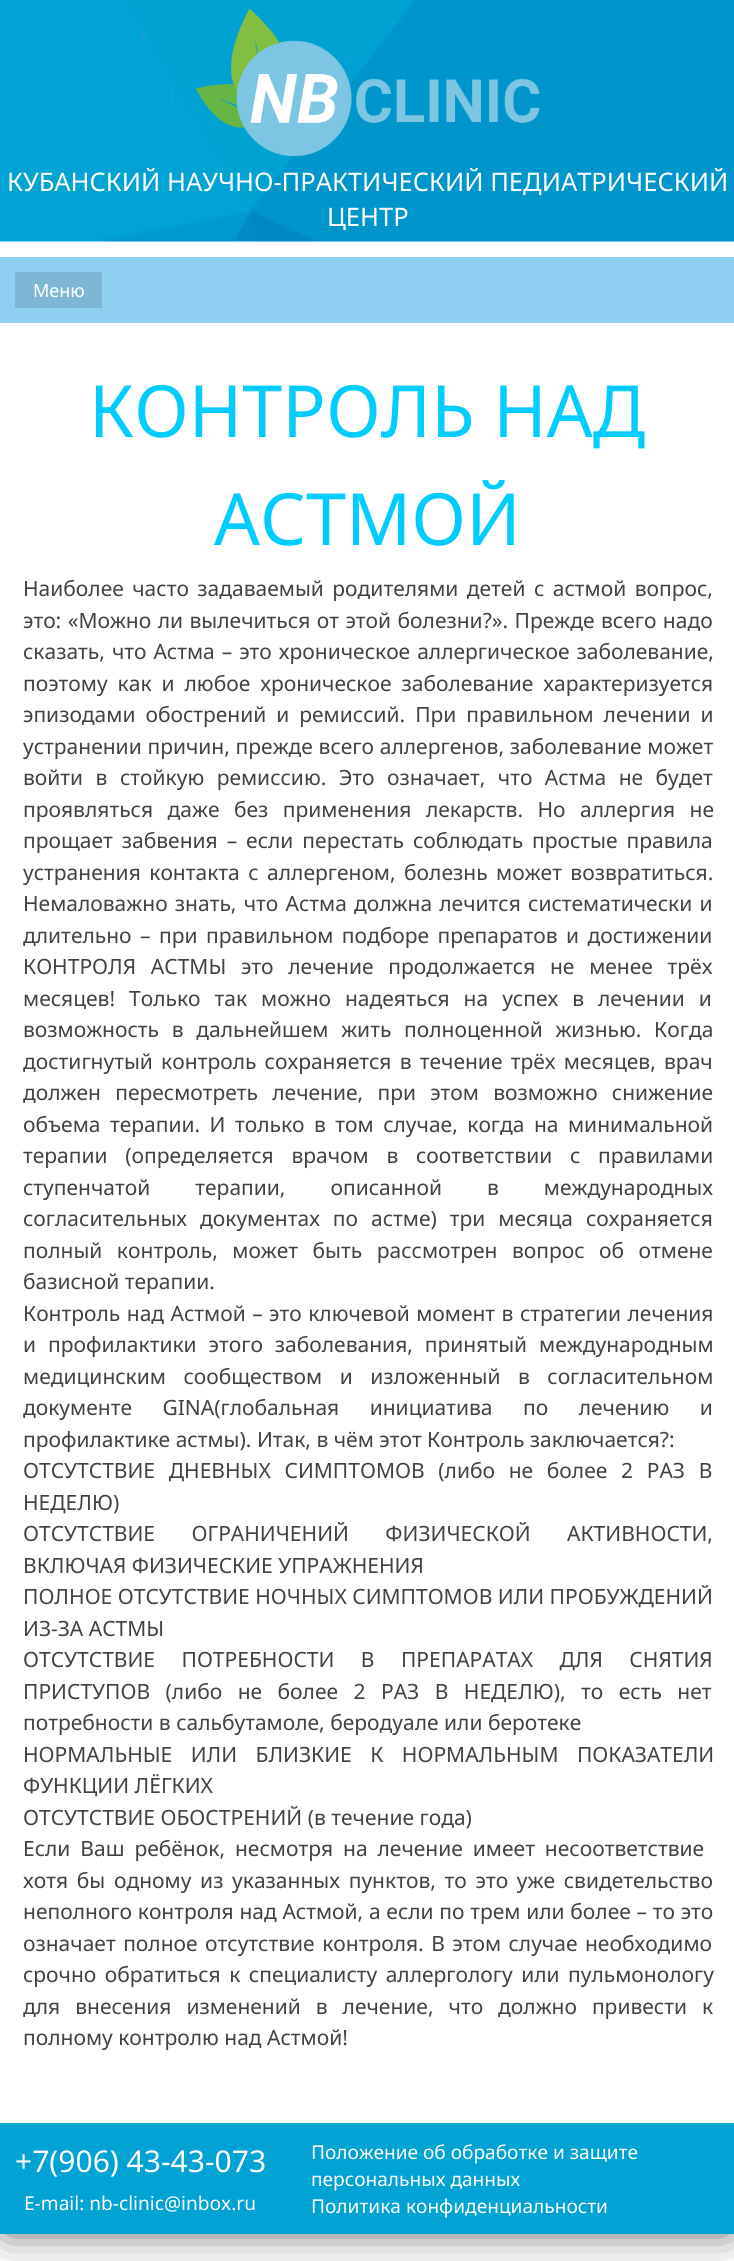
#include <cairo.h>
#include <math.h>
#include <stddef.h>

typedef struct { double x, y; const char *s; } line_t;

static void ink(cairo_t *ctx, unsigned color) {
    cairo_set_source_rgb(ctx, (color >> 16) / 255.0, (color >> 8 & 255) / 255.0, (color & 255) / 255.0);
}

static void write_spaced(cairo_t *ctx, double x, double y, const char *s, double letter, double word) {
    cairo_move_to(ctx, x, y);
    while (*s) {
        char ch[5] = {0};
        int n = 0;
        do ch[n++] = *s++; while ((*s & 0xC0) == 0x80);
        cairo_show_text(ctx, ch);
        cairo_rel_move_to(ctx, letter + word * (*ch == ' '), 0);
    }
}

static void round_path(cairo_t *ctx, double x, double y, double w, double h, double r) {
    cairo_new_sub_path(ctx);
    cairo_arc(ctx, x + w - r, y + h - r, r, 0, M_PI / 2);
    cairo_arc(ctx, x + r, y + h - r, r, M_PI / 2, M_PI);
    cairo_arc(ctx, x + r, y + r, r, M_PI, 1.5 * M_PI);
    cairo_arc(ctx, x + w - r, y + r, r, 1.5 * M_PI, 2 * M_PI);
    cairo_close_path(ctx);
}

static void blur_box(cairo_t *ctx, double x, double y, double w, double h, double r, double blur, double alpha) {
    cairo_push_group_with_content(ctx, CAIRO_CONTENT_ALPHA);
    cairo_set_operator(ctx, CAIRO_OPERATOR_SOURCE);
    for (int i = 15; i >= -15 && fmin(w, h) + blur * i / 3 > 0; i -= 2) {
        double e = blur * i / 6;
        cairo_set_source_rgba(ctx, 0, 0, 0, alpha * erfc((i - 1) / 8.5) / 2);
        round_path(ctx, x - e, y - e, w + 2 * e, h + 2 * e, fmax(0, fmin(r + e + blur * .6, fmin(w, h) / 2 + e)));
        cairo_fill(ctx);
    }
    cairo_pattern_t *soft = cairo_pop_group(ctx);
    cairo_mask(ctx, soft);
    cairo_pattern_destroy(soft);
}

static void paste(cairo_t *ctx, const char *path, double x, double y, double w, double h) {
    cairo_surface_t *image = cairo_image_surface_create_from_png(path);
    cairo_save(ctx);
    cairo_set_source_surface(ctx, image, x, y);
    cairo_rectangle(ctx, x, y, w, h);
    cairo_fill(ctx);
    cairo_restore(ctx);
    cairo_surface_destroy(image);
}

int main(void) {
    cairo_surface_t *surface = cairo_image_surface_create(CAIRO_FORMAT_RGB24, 734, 2261);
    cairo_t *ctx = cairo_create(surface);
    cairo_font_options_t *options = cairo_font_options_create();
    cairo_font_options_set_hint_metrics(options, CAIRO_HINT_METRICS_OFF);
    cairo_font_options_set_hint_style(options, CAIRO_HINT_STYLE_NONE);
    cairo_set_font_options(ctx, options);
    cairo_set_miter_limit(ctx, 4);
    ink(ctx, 0xFFFFFF);
    cairo_paint(ctx);
    cairo_save(ctx);
    cairo_rectangle(ctx, 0, 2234, 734, 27);
    cairo_clip(ctx);
    ink(ctx, 0x000000);
    blur_box(ctx, 6, 6, 723, 2222, 0, 22, 0.75);
    cairo_restore(ctx);
    paste(ctx, "media/1.png", 0, 0, 734, 242);
    paste(ctx, "media/2.png", 195, 8, 345, 148);
    cairo_select_font_face(ctx, "Noto Sans", CAIRO_FONT_SLANT_NORMAL, CAIRO_FONT_WEIGHT_NORMAL);
    cairo_set_font_size(ctx, 25.5);
    ink(ctx, 0xFFFFFF);
    cairo_move_to(ctx, 7, 191);
    cairo_show_text(ctx, "КУБАНСКИЙ НАУЧНО-ПРАКТИЧЕСКИЙ ПЕДИАТРИЧЕСКИЙ");
    cairo_move_to(ctx, 327, 226);
    cairo_show_text(ctx, "ЦЕНТР");
    ink(ctx, 0x8FCFF2);
    cairo_rectangle(ctx, 0, 257, 734, 66);
    cairo_fill(ctx);
    ink(ctx, 0x7EB7D6);
    cairo_rectangle(ctx, 15, 272, 87, 36);
    cairo_fill(ctx);
    cairo_set_font_size(ctx, 18);
    ink(ctx, 0xFFFFFF);
    cairo_move_to(ctx, 33, 297);
    cairo_show_text(ctx, "Меню");
    cairo_set_font_size(ctx, 72);
    ink(ctx, 0x00CCFF);
    cairo_move_to(ctx, 89, 437);
    cairo_show_text(ctx, "КОНТРОЛЬ НАД");
    cairo_move_to(ctx, 214, 545);
    cairo_show_text(ctx, "АСТМОЙ");
    cairo_set_font_size(ctx, 21);
    ink(ctx, 0x424242);
    write_spaced(ctx, 23, 596, "Наиболее часто задаваемый родителями детей с астмой вопрос,", 0, 3);
    write_spaced(ctx, 23, 628, "это: «Можно ли вылечиться от этой болезни?». Прежде всего надо", 0, 1);
    write_spaced(ctx, 23, 659, "сказать, что Астма – это хроническое аллергическое заболевание,", 0, 1.5);
    write_spaced(ctx, 23, 691, "поэтому как и любое хроническое заболевание характеризуется", 0, 4.5);
    write_spaced(ctx, 23, 722, "эпизодами обострений и ремиссий. При правильном лечении и", 0, 4.5);
    write_spaced(ctx, 23, 754, "устранении причин, прежде всего аллергенов, заболевание может", 0, 0.25);
    write_spaced(ctx, 23, 785, "войти в стойкую ремиссию. Это означает, что Астма не будет", 0, 7);
    write_spaced(ctx, 23, 817, "проявляться даже без применения лекарств. Но аллергия не", 0, 9);
    write_spaced(ctx, 23, 848, "прощает забвения – если перестать соблюдать простые правила", 0, 3.5);
    write_spaced(ctx, 23, 880, "устранения контакта с аллергеном, болезнь может возвратиться.", 0, 3);
    write_spaced(ctx, 23, 911, "Немаловажно знать, что Астма должна лечится систематически и", 0, 1.75);
    write_spaced(ctx, 23, 943, "длительно – при правильном подборе препаратов и достижении", 0, 3);
    write_spaced(ctx, 23, 974, "КОНТРОЛЯ АСТМЫ это лечение продолжается не менее трёх", 0, 9.25);
    write_spaced(ctx, 23, 1006, "месяцев! Только так можно надеяться на успех в лечении и", 0, 8.5);
    write_spaced(ctx, 23, 1037, "возможность в дальнейшем жить полноценной жизнью. Когда", 0, 7.25);
    write_spaced(ctx, 23, 1069, "достигнутый контроль сохраняется в течение трёх месяцев, врач", 0, 2.75);
    write_spaced(ctx, 23, 1100, "должен пересмотреть лечение, при этом возможно снижение", 0, 8.75);
    write_spaced(ctx, 23, 1132, "объема терапии. И только в том случае, когда на минимальной", 0, 4);
    write_spaced(ctx, 23, 1163, "терапии (определяется врачом в соответствии с правилами", 0, 12.25);
    write_spaced(ctx, 23, 1195, "ступенчатой терапии, описанной в международных", 0, 39.5);
    write_spaced(ctx, 23, 1226, "согласительных документах по астме) три месяца сохраняется", 0, 7.5);
    write_spaced(ctx, 23, 1258, "полный контроль, может быть рассмотрен вопрос об отмене", 0, 9);
    cairo_move_to(ctx, 23, 1289);
    cairo_show_text(ctx, "базисной терапии.");
    write_spaced(ctx, 23, 1321, "Контроль над Астмой – это ключевой момент в стратегии лечения", 0, 1);
    write_spaced(ctx, 23, 1352, "и профилактики этого заболевания, принятый международным", 0, 6.5);
    write_spaced(ctx, 23, 1384, "медицинским сообществом и изложенный в согласительном", 0, 12);
    write_spaced(ctx, 23, 1415, "документе GINA(глобальная инициатива по лечению и", 0, 25);
    cairo_move_to(ctx, 23, 1447);
    cairo_show_text(ctx, "профилактике астмы). Итак, в чём этот Контроль заключается?:");
    write_spaced(ctx, 23, 1478, "ОТСУТСТВИЕ ДНЕВНЫХ СИМПТОМОВ (либо не более 2 РАЗ В", 0, 8.25);
    cairo_move_to(ctx, 23, 1510);
    cairo_show_text(ctx, "НЕДЕЛЮ)");
    write_spaced(ctx, 23, 1541, "ОТСУТСТВИЕ ОГРАНИЧЕНИЙ ФИЗИЧЕСКОЙ АКТИВНОСТИ,", 0, 31);
    {
        static const line_t items[] = {
            {23, 1573, "ВКЛЮЧАЯ ФИЗИЧЕСКИЕ УПРАЖНЕНИЯ"},
            {23, 1604, "ПОЛНОЕ ОТСУТСТВИЕ НОЧНЫХ СИМПТОМОВ ИЛИ ПРОБУЖДЕНИЙ"},
            {23, 1636, "ИЗ-ЗА АСТМЫ"},
        };
        for (size_t i = 0; i < sizeof items / sizeof *items; i++) {
            cairo_move_to(ctx, items[i].x, items[i].y);
            cairo_show_text(ctx, items[i].s);
        }
    }
    write_spaced(ctx, 23, 1667, "ОТСУТСТВИЕ ПОТРЕБНОСТИ В ПРЕПАРАТАХ ДЛЯ СНЯТИЯ", 0, 21);
    write_spaced(ctx, 23, 1699, "ПРИСТУПОВ (либо не более 2 РАЗ В НЕДЕЛЮ), то есть нет", 0, 10);
    cairo_move_to(ctx, 23, 1730);
    cairo_show_text(ctx, "потребности в сальбутамоле, беродуале или беротеке");
    write_spaced(ctx, 23, 1762, "НОРМАЛЬНЫЕ ИЛИ БЛИЗКИЕ К НОРМАЛЬНЫМ ПОКАЗАТЕЛИ", 0, 13);
    cairo_move_to(ctx, 23, 1793);
    cairo_show_text(ctx, "ФУНКЦИИ ЛЁГКИХ");
    cairo_move_to(ctx, 23, 1825);
    cairo_show_text(ctx, "ОТСУТСТВИЕ ОБОСТРЕНИЙ (в течение года)");
    write_spaced(ctx, 23, 1856, "Если Ваш ребёнок, несмотря на лечение имеет несоответствие", 0, 4.5);
    write_spaced(ctx, 23, 1888, "хотя бы одному из указанных пунктов, то это уже свидетельство", 0, 3.25);
    write_spaced(ctx, 23, 1919, "неполного контроля над Астмой, а если по трем или более – то это", 0, 0.25);
    write_spaced(ctx, 23, 1951, "означает полное отсутствие контроля. В этом случае необходимо", 0, 2);
    write_spaced(ctx, 23, 1982, "срочно обратиться к специалисту аллергологу или пульмонологу", 0, 3);
    write_spaced(ctx, 23, 2014, "для внесения изменений в лечение, что должно привести к", 0, 9.5);
    cairo_move_to(ctx, 23, 2045);
    cairo_show_text(ctx, "полному контролю над Астмой!");
    ink(ctx, 0x00A3D3);
    cairo_rectangle(ctx, 0, 2123, 734, 111);
    cairo_fill(ctx);
    cairo_set_font_size(ctx, 30);
    ink(ctx, 0xFFFFFF);
    cairo_move_to(ctx, 15, 2172);
    cairo_show_text(ctx, "+7(906) 43-43-073");
    cairo_set_font_size(ctx, 19.1);
    {
        static const line_t items[] = {
            {24, 2210, "E-mail: nb-clinic@inbox.ru"},
            {311, 2159, "Положение об обработке и защите"},
            {311, 2186, "персональных данных"},
            {311, 2213, "Политика конфиденциальности"},
        };
        for (size_t i = 0; i < sizeof items / sizeof *items; i++) {
            cairo_move_to(ctx, items[i].x, items[i].y);
            cairo_show_text(ctx, items[i].s);
        }
    }
    cairo_surface_write_to_png(surface, "image.png");
    cairo_font_options_destroy(options);
    cairo_destroy(ctx);
    cairo_surface_destroy(surface);
    return 0;
}
